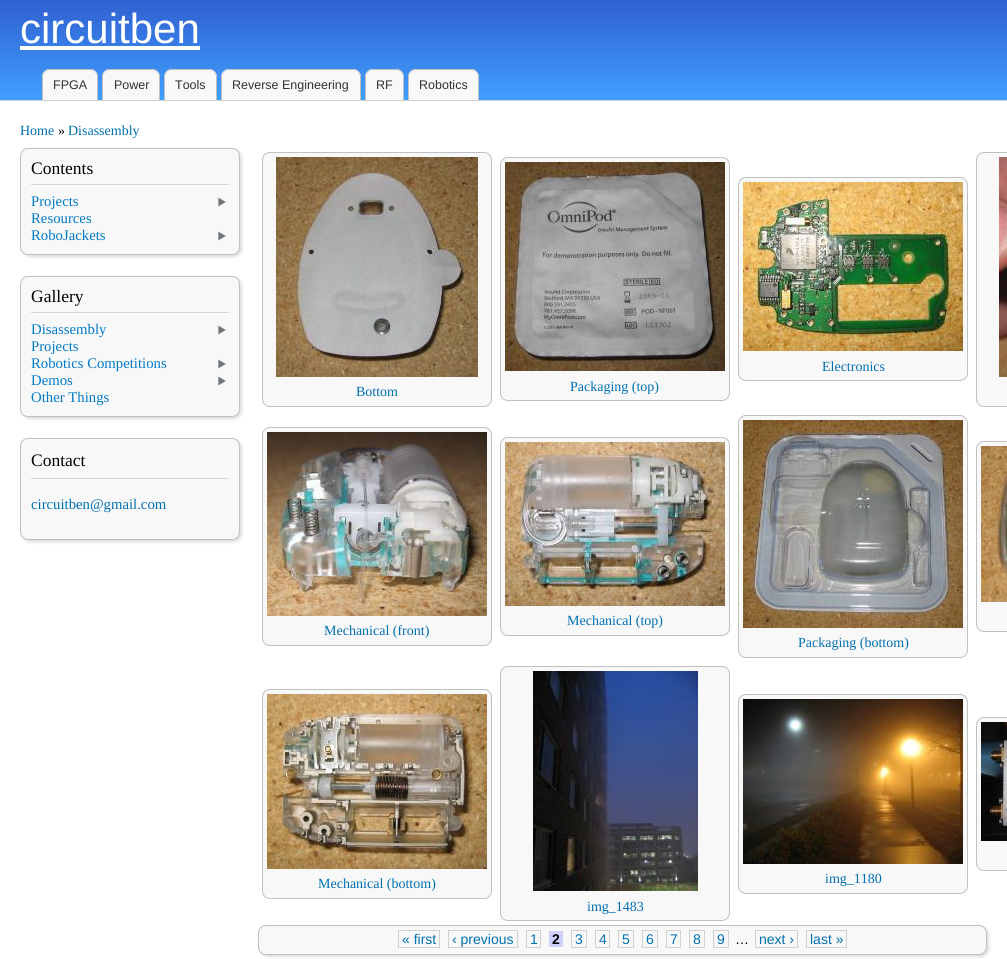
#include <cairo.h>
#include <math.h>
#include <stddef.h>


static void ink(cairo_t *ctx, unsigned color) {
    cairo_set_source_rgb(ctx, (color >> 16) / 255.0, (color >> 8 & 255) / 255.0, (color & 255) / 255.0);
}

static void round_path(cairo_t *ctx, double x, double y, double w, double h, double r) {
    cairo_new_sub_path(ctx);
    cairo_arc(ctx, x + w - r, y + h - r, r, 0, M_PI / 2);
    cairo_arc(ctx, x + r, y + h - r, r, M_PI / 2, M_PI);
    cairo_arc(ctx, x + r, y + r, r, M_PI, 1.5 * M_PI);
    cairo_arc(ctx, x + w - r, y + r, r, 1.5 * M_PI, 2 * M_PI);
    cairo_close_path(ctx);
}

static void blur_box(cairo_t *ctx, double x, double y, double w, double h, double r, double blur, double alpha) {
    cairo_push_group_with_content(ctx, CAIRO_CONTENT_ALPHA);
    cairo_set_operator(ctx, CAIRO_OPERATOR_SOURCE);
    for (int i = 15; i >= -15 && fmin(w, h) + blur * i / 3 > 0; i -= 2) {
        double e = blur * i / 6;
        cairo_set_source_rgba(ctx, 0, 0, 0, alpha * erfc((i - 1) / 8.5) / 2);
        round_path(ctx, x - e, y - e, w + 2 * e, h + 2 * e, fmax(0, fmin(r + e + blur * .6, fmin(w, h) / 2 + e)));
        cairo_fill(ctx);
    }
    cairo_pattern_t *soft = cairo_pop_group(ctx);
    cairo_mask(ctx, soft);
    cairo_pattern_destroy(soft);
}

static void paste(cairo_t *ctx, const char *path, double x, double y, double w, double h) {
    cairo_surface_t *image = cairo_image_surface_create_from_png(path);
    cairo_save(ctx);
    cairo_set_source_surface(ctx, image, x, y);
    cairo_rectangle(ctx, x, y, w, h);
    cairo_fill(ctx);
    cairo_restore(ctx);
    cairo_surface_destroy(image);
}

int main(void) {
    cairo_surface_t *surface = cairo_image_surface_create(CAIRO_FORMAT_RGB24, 1007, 959);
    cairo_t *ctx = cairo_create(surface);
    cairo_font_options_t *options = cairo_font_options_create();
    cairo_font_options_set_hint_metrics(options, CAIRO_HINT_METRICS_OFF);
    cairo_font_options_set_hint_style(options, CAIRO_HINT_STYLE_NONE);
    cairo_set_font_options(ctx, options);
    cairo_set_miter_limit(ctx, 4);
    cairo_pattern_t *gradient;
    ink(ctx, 0xFFFFFF);
    cairo_paint(ctx);
    gradient = cairo_pattern_create_linear(504, 0, 504, 101);
    cairo_pattern_add_color_stop_rgba(gradient, 0, 0.188, 0.376, 0.816, 1);
    cairo_pattern_add_color_stop_rgba(gradient, 1, 0.251, 0.627, 1, 1);
    cairo_set_source(ctx, gradient);
    cairo_pattern_destroy(gradient);
    cairo_rectangle(ctx, 0, 0, 1007, 100);
    cairo_fill(ctx);
    cairo_select_font_face(ctx, "Liberation Sans", CAIRO_FONT_SLANT_NORMAL, CAIRO_FONT_WEIGHT_NORMAL);
    cairo_set_font_size(ctx, 42);
    ink(ctx, 0xFFFFFF);
    cairo_move_to(ctx, 20, 43);
    cairo_show_text(ctx, "circuitben");
    cairo_rectangle(ctx, 20, 46, 180, 4);
    cairo_fill(ctx);
    ink(ctx, 0xD0D0D0);
    cairo_rectangle(ctx, 0, 100, 1007, 1);
    cairo_fill(ctx);
    ink(ctx, 0xF8F8F8);
    cairo_new_path(ctx);
    cairo_move_to(ctx, 50, 69);
    cairo_line_to(ctx, 90, 69);
    cairo_curve_to(ctx, 94.5, 69, 98, 72.5, 98, 77);
    cairo_line_to(ctx, 98, 100);
    cairo_line_to(ctx, 42, 100);
    cairo_line_to(ctx, 42, 77);
    cairo_curve_to(ctx, 42, 72.5, 45.5, 69, 50, 69);
    cairo_close_path(ctx);
    cairo_fill(ctx);
    ink(ctx, 0xC0C0C0);
    cairo_set_fill_rule(ctx, CAIRO_FILL_RULE_EVEN_ODD);
    cairo_new_path(ctx);
    cairo_move_to(ctx, 50, 69);
    cairo_line_to(ctx, 90, 69);
    cairo_curve_to(ctx, 94, 69, 98, 73, 98, 77);
    cairo_line_to(ctx, 98, 100);
    cairo_line_to(ctx, 42, 100);
    cairo_line_to(ctx, 42, 77);
    cairo_curve_to(ctx, 42, 73, 46, 69, 50, 69);
    cairo_close_path(ctx);
    cairo_move_to(ctx, 50, 70);
    cairo_line_to(ctx, 90, 70);
    cairo_curve_to(ctx, 94, 70, 97, 73, 97, 77);
    cairo_line_to(ctx, 97, 100);
    cairo_line_to(ctx, 43, 100);
    cairo_line_to(ctx, 43, 77);
    cairo_curve_to(ctx, 43, 73, 46, 70, 50, 70);
    cairo_close_path(ctx);
    cairo_fill(ctx);
    cairo_set_font_size(ctx, 12.5);
    ink(ctx, 0x303030);
    cairo_move_to(ctx, 53, 89);
    cairo_show_text(ctx, "FPGA");
    ink(ctx, 0xF8F8F8);
    cairo_new_path(ctx);
    cairo_move_to(ctx, 110, 69);
    cairo_line_to(ctx, 152, 69);
    cairo_curve_to(ctx, 156.5, 69, 160, 72.5, 160, 77);
    cairo_line_to(ctx, 160, 100);
    cairo_line_to(ctx, 102, 100);
    cairo_line_to(ctx, 102, 77);
    cairo_curve_to(ctx, 102, 72.5, 105.5, 69, 110, 69);
    cairo_close_path(ctx);
    cairo_fill(ctx);
    ink(ctx, 0xC0C0C0);
    cairo_new_path(ctx);
    cairo_move_to(ctx, 110, 69);
    cairo_line_to(ctx, 152, 69);
    cairo_curve_to(ctx, 156, 69, 160, 73, 160, 77);
    cairo_line_to(ctx, 160, 100);
    cairo_line_to(ctx, 102, 100);
    cairo_line_to(ctx, 102, 77);
    cairo_curve_to(ctx, 102, 73, 106, 69, 110, 69);
    cairo_close_path(ctx);
    cairo_move_to(ctx, 110, 70);
    cairo_line_to(ctx, 152, 70);
    cairo_curve_to(ctx, 156, 70, 159, 73, 159, 77);
    cairo_line_to(ctx, 159, 100);
    cairo_line_to(ctx, 103, 100);
    cairo_line_to(ctx, 103, 77);
    cairo_curve_to(ctx, 103, 73, 106, 70, 110, 70);
    cairo_close_path(ctx);
    cairo_fill(ctx);
    ink(ctx, 0x303030);
    cairo_move_to(ctx, 114, 89);
    cairo_show_text(ctx, "Power");
    ink(ctx, 0xF8F8F8);
    cairo_new_path(ctx);
    cairo_move_to(ctx, 172, 69);
    cairo_line_to(ctx, 209, 69);
    cairo_curve_to(ctx, 213.5, 69, 217, 72.5, 217, 77);
    cairo_line_to(ctx, 217, 100);
    cairo_line_to(ctx, 164, 100);
    cairo_line_to(ctx, 164, 77);
    cairo_curve_to(ctx, 164, 72.5, 167.5, 69, 172, 69);
    cairo_close_path(ctx);
    cairo_fill(ctx);
    ink(ctx, 0xC0C0C0);
    cairo_new_path(ctx);
    cairo_move_to(ctx, 172, 69);
    cairo_line_to(ctx, 209, 69);
    cairo_curve_to(ctx, 213, 69, 217, 73, 217, 77);
    cairo_line_to(ctx, 217, 100);
    cairo_line_to(ctx, 164, 100);
    cairo_line_to(ctx, 164, 77);
    cairo_curve_to(ctx, 164, 73, 168, 69, 172, 69);
    cairo_close_path(ctx);
    cairo_move_to(ctx, 172, 70);
    cairo_line_to(ctx, 209, 70);
    cairo_curve_to(ctx, 213, 70, 216, 73, 216, 77);
    cairo_line_to(ctx, 216, 100);
    cairo_line_to(ctx, 165, 100);
    cairo_line_to(ctx, 165, 77);
    cairo_curve_to(ctx, 165, 73, 168, 70, 172, 70);
    cairo_close_path(ctx);
    cairo_fill(ctx);
    ink(ctx, 0x303030);
    cairo_move_to(ctx, 175, 89);
    cairo_show_text(ctx, "Tools");
    ink(ctx, 0xF8F8F8);
    cairo_new_path(ctx);
    cairo_move_to(ctx, 229, 69);
    cairo_line_to(ctx, 353, 69);
    cairo_curve_to(ctx, 357.5, 69, 361, 72.5, 361, 77);
    cairo_line_to(ctx, 361, 100);
    cairo_line_to(ctx, 221, 100);
    cairo_line_to(ctx, 221, 77);
    cairo_curve_to(ctx, 221, 72.5, 224.5, 69, 229, 69);
    cairo_close_path(ctx);
    cairo_fill(ctx);
    ink(ctx, 0xC0C0C0);
    cairo_new_path(ctx);
    cairo_move_to(ctx, 229, 69);
    cairo_line_to(ctx, 353, 69);
    cairo_curve_to(ctx, 357, 69, 361, 73, 361, 77);
    cairo_line_to(ctx, 361, 100);
    cairo_line_to(ctx, 221, 100);
    cairo_line_to(ctx, 221, 77);
    cairo_curve_to(ctx, 221, 73, 225, 69, 229, 69);
    cairo_close_path(ctx);
    cairo_move_to(ctx, 229, 70);
    cairo_line_to(ctx, 353, 70);
    cairo_curve_to(ctx, 357, 70, 360, 73, 360, 77);
    cairo_line_to(ctx, 360, 100);
    cairo_line_to(ctx, 222, 100);
    cairo_line_to(ctx, 222, 77);
    cairo_curve_to(ctx, 222, 73, 225, 70, 229, 70);
    cairo_close_path(ctx);
    cairo_fill(ctx);
    ink(ctx, 0x303030);
    cairo_move_to(ctx, 232, 89);
    cairo_show_text(ctx, "Reverse Engineering");
    ink(ctx, 0xF8F8F8);
    cairo_new_path(ctx);
    cairo_move_to(ctx, 373, 69);
    cairo_line_to(ctx, 396, 69);
    cairo_curve_to(ctx, 400.5, 69, 404, 72.5, 404, 77);
    cairo_line_to(ctx, 404, 100);
    cairo_line_to(ctx, 365, 100);
    cairo_line_to(ctx, 365, 77);
    cairo_curve_to(ctx, 365, 72.5, 368.5, 69, 373, 69);
    cairo_close_path(ctx);
    cairo_fill(ctx);
    ink(ctx, 0xC0C0C0);
    cairo_new_path(ctx);
    cairo_move_to(ctx, 373, 69);
    cairo_line_to(ctx, 396, 69);
    cairo_curve_to(ctx, 400.5, 69, 404, 72.5, 404, 77);
    cairo_line_to(ctx, 404, 100);
    cairo_line_to(ctx, 365, 100);
    cairo_line_to(ctx, 365, 77);
    cairo_curve_to(ctx, 365, 72.5, 368.5, 69, 373, 69);
    cairo_close_path(ctx);
    cairo_move_to(ctx, 373, 70);
    cairo_line_to(ctx, 396, 70);
    cairo_curve_to(ctx, 400, 70, 403, 73, 403, 77);
    cairo_line_to(ctx, 403, 100);
    cairo_line_to(ctx, 366, 100);
    cairo_line_to(ctx, 366, 77);
    cairo_curve_to(ctx, 366, 73, 369, 70, 373, 70);
    cairo_close_path(ctx);
    cairo_fill(ctx);
    ink(ctx, 0x303030);
    cairo_move_to(ctx, 376, 89);
    cairo_show_text(ctx, "RF");
    ink(ctx, 0xF8F8F8);
    cairo_new_path(ctx);
    cairo_move_to(ctx, 416, 69);
    cairo_line_to(ctx, 471, 69);
    cairo_curve_to(ctx, 475.5, 69, 479, 72.5, 479, 77);
    cairo_line_to(ctx, 479, 100);
    cairo_line_to(ctx, 408, 100);
    cairo_line_to(ctx, 408, 77);
    cairo_curve_to(ctx, 408, 72.5, 411.5, 69, 416, 69);
    cairo_close_path(ctx);
    cairo_fill(ctx);
    ink(ctx, 0xC0C0C0);
    cairo_new_path(ctx);
    cairo_move_to(ctx, 416, 69);
    cairo_line_to(ctx, 471, 69);
    cairo_curve_to(ctx, 475, 69, 479, 73, 479, 77);
    cairo_line_to(ctx, 479, 100);
    cairo_line_to(ctx, 408, 100);
    cairo_line_to(ctx, 408, 77);
    cairo_curve_to(ctx, 408, 73, 412, 69, 416, 69);
    cairo_close_path(ctx);
    cairo_move_to(ctx, 416, 70);
    cairo_line_to(ctx, 471, 70);
    cairo_curve_to(ctx, 475, 70, 478, 73, 478, 77);
    cairo_line_to(ctx, 478, 100);
    cairo_line_to(ctx, 409, 100);
    cairo_line_to(ctx, 409, 77);
    cairo_curve_to(ctx, 409, 73, 412, 70, 416, 70);
    cairo_close_path(ctx);
    cairo_fill(ctx);
    ink(ctx, 0x303030);
    cairo_move_to(ctx, 419, 89);
    cairo_show_text(ctx, "Robotics");
    cairo_select_font_face(ctx, "Liberation Serif", CAIRO_FONT_SLANT_NORMAL, CAIRO_FONT_WEIGHT_NORMAL);
    cairo_set_font_size(ctx, 14);
    ink(ctx, 0x0070B0);
    cairo_move_to(ctx, 20, 135);
    cairo_show_text(ctx, "Home");
    ink(ctx, 0x000000);
    cairo_move_to(ctx, 58, 135);
    cairo_show_text(ctx, "»");
    ink(ctx, 0x0070B0);
    cairo_move_to(ctx, 68, 135);
    cairo_show_text(ctx, "Disassembly");
    ink(ctx, 0xDDDDDD);
    blur_box(ctx, 22, 150, 220, 107, 8, 1.5, 1);
    ink(ctx, 0xF8F8F8);
    round_path(ctx, 20.5, 148.5, 219, 106, 7.5);
    cairo_fill_preserve(ctx);
    ink(ctx, 0xC0C0C0);
    cairo_set_line_width(ctx, 1);
    cairo_stroke(ctx);
    ink(ctx, 0xD6D6D6);
    cairo_rectangle(ctx, 31, 184, 198, 1);
    cairo_fill(ctx);
    cairo_set_font_size(ctx, 17.5);
    ink(ctx, 0x000000);
    cairo_move_to(ctx, 31, 174);
    cairo_show_text(ctx, "Contents");
    paste(ctx, "media/1.png", 218, 197, 8, 10);
    cairo_set_font_size(ctx, 14.75);
    ink(ctx, 0x027AC6);
    cairo_move_to(ctx, 31, 206);
    cairo_show_text(ctx, "Projects");
    cairo_move_to(ctx, 31, 223);
    cairo_show_text(ctx, "Resources");
    paste(ctx, "media/1.png", 218, 231, 8, 10);
    cairo_move_to(ctx, 31, 240);
    cairo_show_text(ctx, "RoboJackets");
    ink(ctx, 0xDDDDDD);
    blur_box(ctx, 22, 278, 220, 141, 8, 1.5, 1);
    ink(ctx, 0xF8F8F8);
    round_path(ctx, 20.5, 276.5, 219, 140, 7.5);
    cairo_fill_preserve(ctx);
    ink(ctx, 0xC0C0C0);
    cairo_stroke(ctx);
    ink(ctx, 0xD6D6D6);
    cairo_rectangle(ctx, 31, 312, 198, 1);
    cairo_fill(ctx);
    cairo_set_font_size(ctx, 17.5);
    ink(ctx, 0x000000);
    cairo_move_to(ctx, 31, 302);
    cairo_show_text(ctx, "Gallery");
    paste(ctx, "media/1.png", 218, 325, 8, 10);
    cairo_set_font_size(ctx, 14.75);
    ink(ctx, 0x027AC6);
    cairo_move_to(ctx, 31, 334);
    cairo_show_text(ctx, "Disassembly");
    cairo_move_to(ctx, 31, 351);
    cairo_show_text(ctx, "Projects");
    paste(ctx, "media/1.png", 218, 359, 8, 10);
    cairo_move_to(ctx, 31, 368);
    cairo_show_text(ctx, "Robotics Competitions");
    paste(ctx, "media/1.png", 218, 376, 8, 10);
    cairo_move_to(ctx, 31, 385);
    cairo_show_text(ctx, "Demos");
    cairo_move_to(ctx, 31, 402);
    cairo_show_text(ctx, "Other Things");
    ink(ctx, 0xDDDDDD);
    blur_box(ctx, 22, 440, 220, 102, 8, 1.5, 1);
    ink(ctx, 0xF8F8F8);
    round_path(ctx, 20.5, 438.5, 219, 101, 7.5);
    cairo_fill_preserve(ctx);
    ink(ctx, 0xC0C0C0);
    cairo_stroke(ctx);
    ink(ctx, 0xD6D6D6);
    cairo_rectangle(ctx, 31, 478, 198, 1);
    cairo_fill(ctx);
    cairo_set_font_size(ctx, 17.5);
    ink(ctx, 0x000000);
    cairo_move_to(ctx, 31, 466);
    cairo_show_text(ctx, "Contact");
    cairo_set_font_size(ctx, 14.75);
    ink(ctx, 0x0070B0);
    cairo_move_to(ctx, 31, 509);
    cairo_show_text(ctx, "circuitben@gmail.com");
    ink(ctx, 0xF8F8F8);
    round_path(ctx, 738.5, 177.5, 229, 203, 7.5);
    cairo_fill_preserve(ctx);
    ink(ctx, 0xC0C0C0);
    cairo_stroke(ctx);
    paste(ctx, "media/2.png", 743, 182, 220, 169);
    cairo_set_font_size(ctx, 14);
    ink(ctx, 0x0070B0);
    cairo_move_to(ctx, 822, 371);
    cairo_show_text(ctx, "Electronics");
    ink(ctx, 0xF8F8F8);
    round_path(ctx, 976.5, 152.5, 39, 254, 7.5);
    cairo_fill_preserve(ctx);
    ink(ctx, 0xC0C0C0);
    cairo_stroke(ctx);
    paste(ctx, "media/3.png", 999, 157, 8, 220);
    ink(ctx, 0xF8F8F8);
    round_path(ctx, 262.5, 152.5, 229, 254, 7.5);
    cairo_fill_preserve(ctx);
    ink(ctx, 0xC0C0C0);
    cairo_stroke(ctx);
    paste(ctx, "media/4.png", 276, 157, 202, 220);
    ink(ctx, 0x0070B0);
    cairo_move_to(ctx, 356, 396);
    cairo_show_text(ctx, "Bottom");
    ink(ctx, 0xF8F8F8);
    round_path(ctx, 500.5, 157.5, 229, 243, 7.5);
    cairo_fill_preserve(ctx);
    ink(ctx, 0xC0C0C0);
    cairo_stroke(ctx);
    paste(ctx, "media/5.png", 505, 162, 220, 209);
    ink(ctx, 0x0070B0);
    cairo_move_to(ctx, 570, 391);
    cairo_show_text(ctx, "Packaging (top)");
    ink(ctx, 0xF8F8F8);
    round_path(ctx, 500.5, 437.5, 229, 198, 7.5);
    cairo_fill_preserve(ctx);
    ink(ctx, 0xC0C0C0);
    cairo_stroke(ctx);
    paste(ctx, "media/6.png", 505, 442, 220, 164);
    ink(ctx, 0x0070B0);
    cairo_move_to(ctx, 567, 625);
    cairo_show_text(ctx, "Mechanical (top)");
    ink(ctx, 0xF8F8F8);
    round_path(ctx, 976.5, 441.5, 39, 190, 7.5);
    cairo_fill_preserve(ctx);
    ink(ctx, 0xC0C0C0);
    cairo_stroke(ctx);
    paste(ctx, "media/7.png", 981, 446, 26, 156);
    ink(ctx, 0xF8F8F8);
    round_path(ctx, 262.5, 427.5, 229, 218, 7.5);
    cairo_fill_preserve(ctx);
    ink(ctx, 0xC0C0C0);
    cairo_stroke(ctx);
    paste(ctx, "media/8.png", 267, 432, 220, 184);
    ink(ctx, 0x0070B0);
    cairo_move_to(ctx, 324, 635);
    cairo_show_text(ctx, "Mechanical (front)");
    ink(ctx, 0xF8F8F8);
    round_path(ctx, 738.5, 415.5, 229, 242, 7.5);
    cairo_fill_preserve(ctx);
    ink(ctx, 0xC0C0C0);
    cairo_stroke(ctx);
    paste(ctx, "media/9.png", 743, 420, 220, 208);
    ink(ctx, 0x0070B0);
    cairo_move_to(ctx, 798, 647);
    cairo_show_text(ctx, "Packaging (bottom)");
    ink(ctx, 0xF8F8F8);
    round_path(ctx, 976.5, 717.5, 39, 153, 7.5);
    cairo_fill_preserve(ctx);
    ink(ctx, 0xC0C0C0);
    cairo_stroke(ctx);
    paste(ctx, "media/10.png", 981, 722, 26, 119);
    ink(ctx, 0xF8F8F8);
    round_path(ctx, 262.5, 689.5, 229, 209, 7.5);
    cairo_fill_preserve(ctx);
    ink(ctx, 0xC0C0C0);
    cairo_stroke(ctx);
    paste(ctx, "media/11.png", 267, 694, 220, 175);
    ink(ctx, 0x0070B0);
    cairo_move_to(ctx, 318, 888);
    cairo_show_text(ctx, "Mechanical (bottom)");
    ink(ctx, 0xF8F8F8);
    round_path(ctx, 738.5, 694.5, 229, 199, 7.5);
    cairo_fill_preserve(ctx);
    ink(ctx, 0xC0C0C0);
    cairo_stroke(ctx);
    paste(ctx, "media/12.png", 743, 699, 220, 165);
    ink(ctx, 0x0070B0);
    cairo_move_to(ctx, 825, 883);
    cairo_show_text(ctx, "img_1180");
    ink(ctx, 0xF8F8F8);
    round_path(ctx, 500.5, 666.5, 229, 254, 7.5);
    cairo_fill_preserve(ctx);
    ink(ctx, 0xC0C0C0);
    cairo_stroke(ctx);
    paste(ctx, "media/13.png", 533, 671, 165, 220);
    ink(ctx, 0x0070B0);
    cairo_move_to(ctx, 587, 911);
    cairo_show_text(ctx, "img_1483");
    ink(ctx, 0xDDDDDD);
    blur_box(ctx, 260, 927, 729, 30, 8, 1.5, 1);
    ink(ctx, 0xF8F8F8);
    round_path(ctx, 258.5, 925.5, 728, 29, 7.5);
    cairo_fill_preserve(ctx);
    ink(ctx, 0xC0C0C0);
    cairo_stroke(ctx);
    cairo_rectangle(ctx, 398.5, 930.5, 41, 17);
    ink(ctx, 0xD0D0D0);
    cairo_stroke(ctx);
    cairo_select_font_face(ctx, "Liberation Sans", CAIRO_FONT_SLANT_NORMAL, CAIRO_FONT_WEIGHT_NORMAL);
    ink(ctx, 0x0070B0);
    cairo_move_to(ctx, 402, 944);
    cairo_show_text(ctx, "« first");
    cairo_rectangle(ctx, 448.5, 930.5, 69, 17);
    ink(ctx, 0xD0D0D0);
    cairo_stroke(ctx);
    ink(ctx, 0x0070B0);
    cairo_move_to(ctx, 452, 944);
    cairo_show_text(ctx, "‹ previous");
    cairo_rectangle(ctx, 526.5, 930.5, 14, 17);
    ink(ctx, 0xD0D0D0);
    cairo_stroke(ctx);
    ink(ctx, 0x0070B0);
    cairo_move_to(ctx, 530, 944);
    cairo_show_text(ctx, "1");
    ink(ctx, 0xD0D0FF);
    cairo_rectangle(ctx, 549, 931, 14, 16);
    cairo_fill(ctx);
    cairo_select_font_face(ctx, "Liberation Sans", CAIRO_FONT_SLANT_NORMAL, CAIRO_FONT_WEIGHT_BOLD);
    ink(ctx, 0x000000);
    cairo_move_to(ctx, 552, 944);
    cairo_show_text(ctx, "2");
    cairo_rectangle(ctx, 571.5, 930.5, 15, 17);
    ink(ctx, 0xD0D0D0);
    cairo_stroke(ctx);
    cairo_select_font_face(ctx, "Liberation Sans", CAIRO_FONT_SLANT_NORMAL, CAIRO_FONT_WEIGHT_NORMAL);
    ink(ctx, 0x0070B0);
    cairo_move_to(ctx, 575, 944);
    cairo_show_text(ctx, "3");
    cairo_rectangle(ctx, 595.5, 930.5, 14, 17);
    ink(ctx, 0xD0D0D0);
    cairo_stroke(ctx);
    ink(ctx, 0x0070B0);
    cairo_move_to(ctx, 599, 944);
    cairo_show_text(ctx, "4");
    cairo_rectangle(ctx, 618.5, 930.5, 15, 17);
    ink(ctx, 0xD0D0D0);
    cairo_stroke(ctx);
    ink(ctx, 0x0070B0);
    cairo_move_to(ctx, 622, 944);
    cairo_show_text(ctx, "5");
    cairo_rectangle(ctx, 642.5, 930.5, 15, 17);
    ink(ctx, 0xD0D0D0);
    cairo_stroke(ctx);
    ink(ctx, 0x0070B0);
    cairo_move_to(ctx, 646, 944);
    cairo_show_text(ctx, "6");
    cairo_rectangle(ctx, 666.5, 930.5, 14, 17);
    ink(ctx, 0xD0D0D0);
    cairo_stroke(ctx);
    ink(ctx, 0x0070B0);
    cairo_move_to(ctx, 670, 944);
    cairo_show_text(ctx, "7");
    cairo_rectangle(ctx, 689.5, 930.5, 15, 17);
    ink(ctx, 0xD0D0D0);
    cairo_stroke(ctx);
    ink(ctx, 0x0070B0);
    cairo_move_to(ctx, 693, 944);
    cairo_show_text(ctx, "8");
    cairo_rectangle(ctx, 713.5, 930.5, 15, 17);
    ink(ctx, 0xD0D0D0);
    cairo_stroke(ctx);
    ink(ctx, 0x0070B0);
    cairo_move_to(ctx, 717, 944);
    cairo_show_text(ctx, "9");
    ink(ctx, 0x000000);
    cairo_move_to(ctx, 735, 944);
    cairo_show_text(ctx, "…");
    cairo_rectangle(ctx, 755.5, 930.5, 42, 17);
    ink(ctx, 0xD0D0D0);
    cairo_stroke(ctx);
    ink(ctx, 0x0070B0);
    cairo_move_to(ctx, 759, 944);
    cairo_show_text(ctx, "next ›");
    cairo_rectangle(ctx, 806.5, 930.5, 40, 17);
    ink(ctx, 0xD0D0D0);
    cairo_stroke(ctx);
    ink(ctx, 0x0070B0);
    cairo_move_to(ctx, 810, 944);
    cairo_show_text(ctx, "last »");
    cairo_surface_write_to_png(surface, "image.png");
    cairo_font_options_destroy(options);
    cairo_destroy(ctx);
    cairo_surface_destroy(surface);
    return 0;
}
